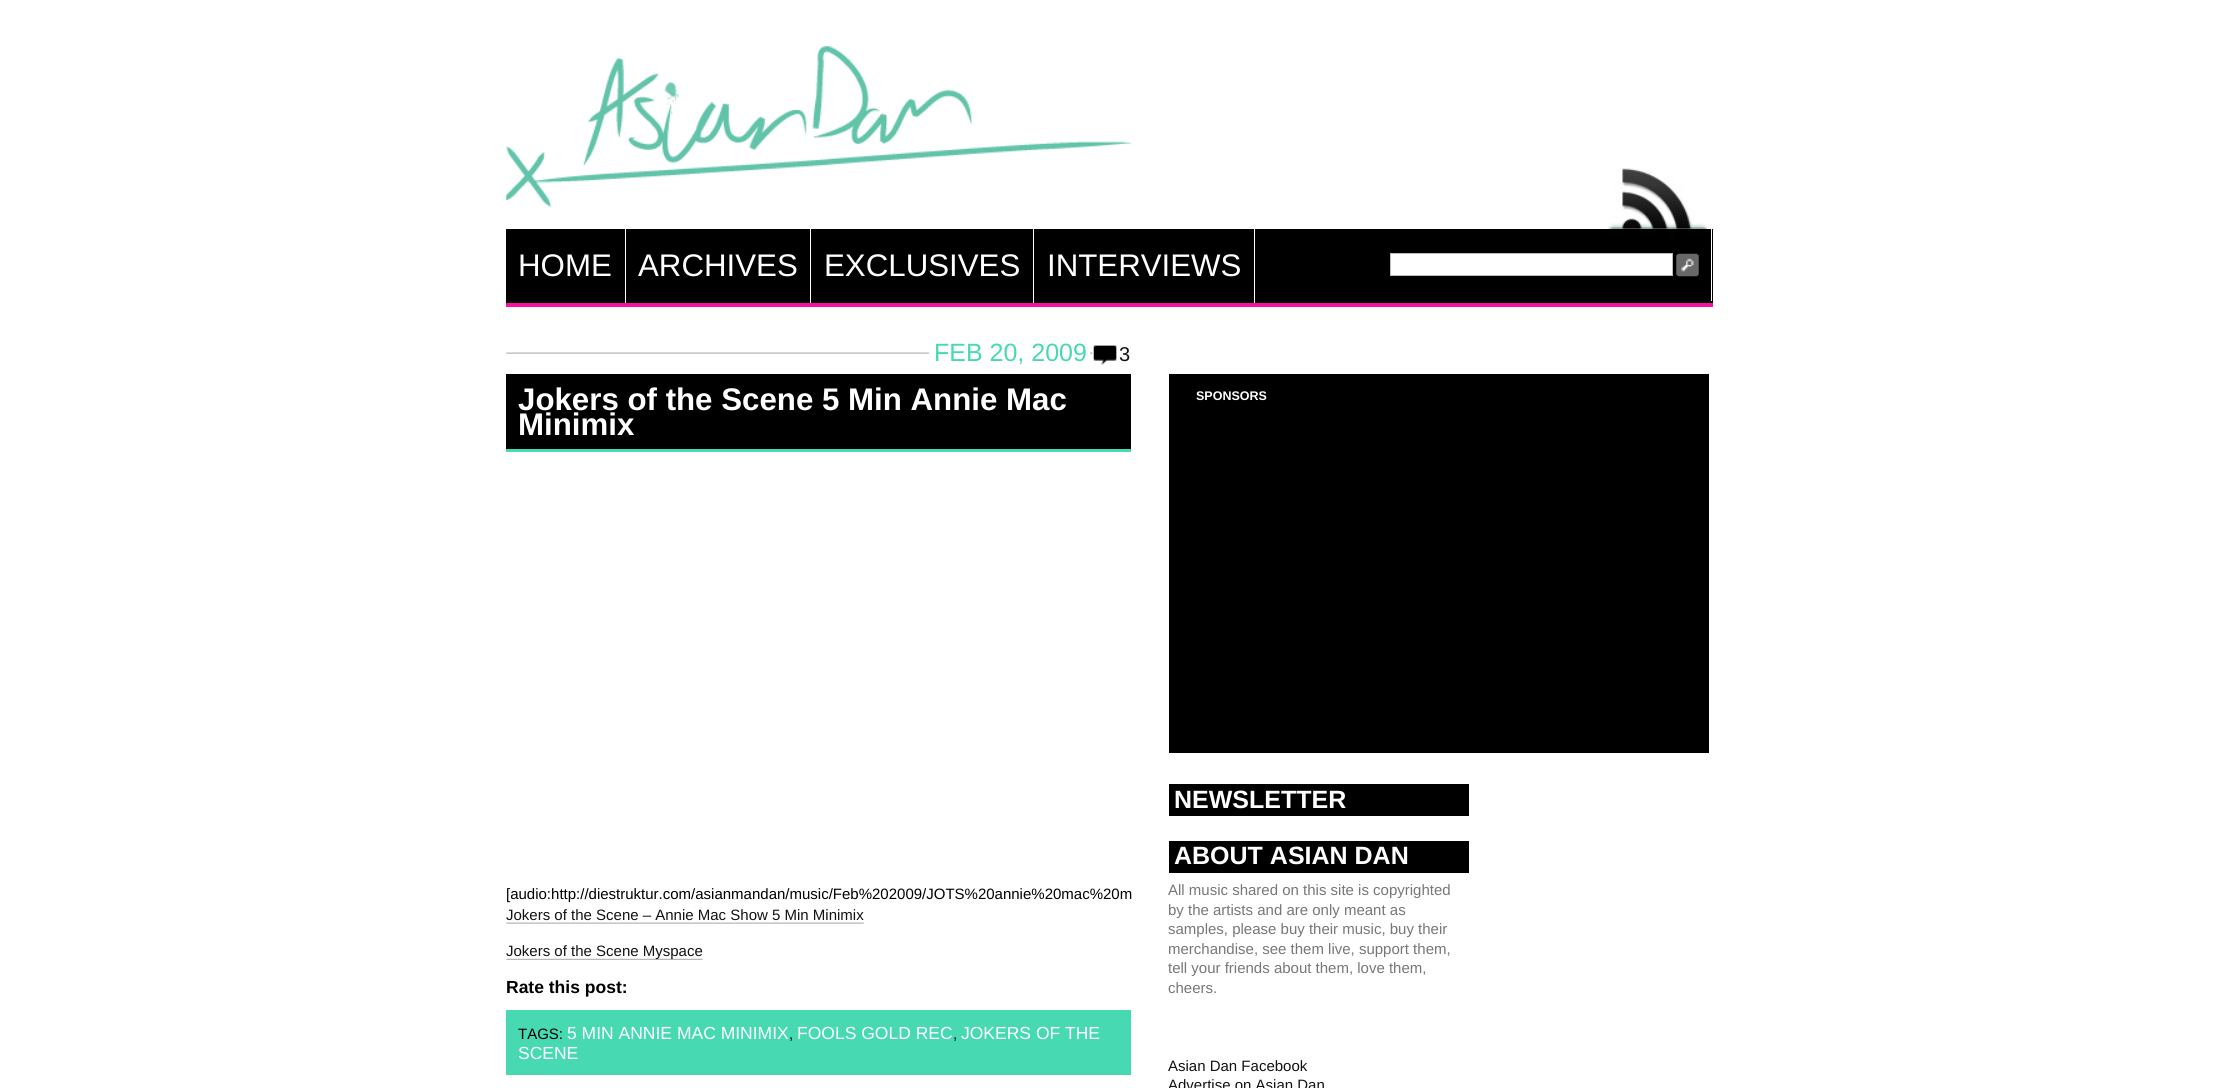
#include <cairo.h>
#include <math.h>
#include <stddef.h>

typedef struct { double x, y; const char *s; } line_t;
typedef struct { double x, y, w, h; unsigned color; } box_t;

static void ink(cairo_t *ctx, unsigned color) {
    cairo_set_source_rgb(ctx, (color >> 16) / 255.0, (color >> 8 & 255) / 255.0, (color & 255) / 255.0);
}

static void paste(cairo_t *ctx, const char *path, double x, double y, double w, double h) {
    cairo_surface_t *image = cairo_image_surface_create_from_png(path);
    cairo_save(ctx);
    cairo_set_source_surface(ctx, image, x, y);
    cairo_rectangle(ctx, x, y, w, h);
    cairo_fill(ctx);
    cairo_restore(ctx);
    cairo_surface_destroy(image);
}

int main(void) {
    cairo_surface_t *surface = cairo_image_surface_create(CAIRO_FORMAT_RGB24, 2217, 1088);
    cairo_t *ctx = cairo_create(surface);
    cairo_font_options_t *options = cairo_font_options_create();
    cairo_font_options_set_hint_metrics(options, CAIRO_HINT_METRICS_OFF);
    cairo_font_options_set_hint_style(options, CAIRO_HINT_STYLE_NONE);
    cairo_set_font_options(ctx, options);
    cairo_set_miter_limit(ctx, 4);
    ink(ctx, 0xFFFFFF);
    cairo_paint(ctx);
    paste(ctx, "media/1.png", 506, 46, 626, 162);
    paste(ctx, "media/2.png", 1607, 168, 106, 61);
    {
        static const box_t items[] = {
            {506, 229, 1207, 74, 0x000000},
            {506, 303, 1207, 4, 0xF911A4},
            {625, 229, 1, 74, 0xFFFFFF},
        };
        for (size_t i = 0; i < sizeof items / sizeof *items; i++) {
            ink(ctx, items[i].color);
            cairo_rectangle(ctx, items[i].x, items[i].y, items[i].w, items[i].h);
            cairo_fill(ctx);
        }
    }
    cairo_select_font_face(ctx, "Liberation Sans", CAIRO_FONT_SLANT_NORMAL, CAIRO_FONT_WEIGHT_NORMAL);
    cairo_set_font_size(ctx, 31.25);
    cairo_move_to(ctx, 518, 276);
    cairo_show_text(ctx, "HOME");
    cairo_rectangle(ctx, 810, 229, 1, 74);
    cairo_fill(ctx);
    cairo_move_to(ctx, 638, 276);
    cairo_show_text(ctx, "ARCHIVES");
    cairo_rectangle(ctx, 1033, 229, 1, 74);
    cairo_fill(ctx);
    cairo_move_to(ctx, 824, 276);
    cairo_show_text(ctx, "EXCLUSIVES");
    cairo_rectangle(ctx, 1254, 229, 1, 74);
    cairo_fill(ctx);
    cairo_move_to(ctx, 1047, 276);
    cairo_show_text(ctx, "INTERVIEWS");
    cairo_rectangle(ctx, 1711, 229, 1, 72);
    cairo_fill(ctx);
    cairo_rectangle(ctx, 1390.5, 253.5, 282, 22);
    cairo_fill_preserve(ctx);
    ink(ctx, 0xBBBBBB);
    cairo_set_line_width(ctx, 1);
    cairo_stroke(ctx);
    paste(ctx, "media/3.png", 1676, 253, 23, 24);
    paste(ctx, "media/4.png", 506, 352, 626, 2);
    ink(ctx, 0xFFFFFF);
    cairo_rectangle(ctx, 929, 352, 161, 2);
    cairo_fill(ctx);
    cairo_set_font_size(ctx, 25);
    ink(ctx, 0x46D9B2);
    cairo_move_to(ctx, 934, 361);
    cairo_show_text(ctx, "FEB 20, 2009");
    ink(ctx, 0xFFFFFF);
    cairo_rectangle(ctx, 1093, 352, 38, 2);
    cairo_fill(ctx);
    paste(ctx, "media/5.png", 1092, 345, 25, 20);
    cairo_set_font_size(ctx, 20);
    ink(ctx, 0x121212);
    cairo_move_to(ctx, 1119, 361);
    cairo_show_text(ctx, "3");
    ink(ctx, 0x000000);
    cairo_rectangle(ctx, 506, 374, 625, 75);
    cairo_fill(ctx);
    ink(ctx, 0x46D9B2);
    cairo_rectangle(ctx, 506, 449, 625, 3);
    cairo_fill(ctx);
    cairo_select_font_face(ctx, "Liberation Sans", CAIRO_FONT_SLANT_NORMAL, CAIRO_FONT_WEIGHT_BOLD);
    cairo_set_font_size(ctx, 31.25);
    ink(ctx, 0xFFFFFF);
    cairo_move_to(ctx, 518, 410);
    cairo_show_text(ctx, "Jokers of the Scene 5 Min Annie Mac");
    cairo_move_to(ctx, 518, 435);
    cairo_show_text(ctx, "Minimix");
    cairo_select_font_face(ctx, "Liberation Sans", CAIRO_FONT_SLANT_NORMAL, CAIRO_FONT_WEIGHT_NORMAL);
    cairo_set_font_size(ctx, 15);
    ink(ctx, 0x000000);
    cairo_move_to(ctx, 506, 899);
    cairo_show_text(ctx, "[audio:http://diestruktur.com/asianmandan/music/Feb%202009/JOTS%20annie%20mac%20m");
    ink(ctx, 0x121212);
    cairo_move_to(ctx, 506, 920);
    cairo_show_text(ctx, "Jokers of the Scene – Annie Mac Show 5 Min Minimix");
    paste(ctx, "media/6.png", 506, 922, 358, 2);
    paste(ctx, "media/7.png", 506, 958, 197, 2);
    cairo_move_to(ctx, 506, 956);
    cairo_show_text(ctx, "Jokers of the Scene Myspace");
    cairo_select_font_face(ctx, "Liberation Sans", CAIRO_FONT_SLANT_NORMAL, CAIRO_FONT_WEIGHT_BOLD);
    cairo_set_font_size(ctx, 17.5);
    ink(ctx, 0x000000);
    cairo_move_to(ctx, 506, 993);
    cairo_show_text(ctx, "Rate this post:");
    ink(ctx, 0x46D9B2);
    cairo_rectangle(ctx, 506, 1010, 625, 65);
    cairo_fill(ctx);
    cairo_select_font_face(ctx, "Liberation Sans", CAIRO_FONT_SLANT_NORMAL, CAIRO_FONT_WEIGHT_NORMAL);
    cairo_set_font_size(ctx, 15);
    ink(ctx, 0x000000);
    cairo_move_to(ctx, 518, 1039);
    cairo_show_text(ctx, "TAGS:");
    cairo_set_font_size(ctx, 17.5);
    ink(ctx, 0xFFFFFF);
    cairo_move_to(ctx, 567, 1039);
    cairo_show_text(ctx, "5 MIN ANNIE MAC MINIMIX");
    cairo_set_font_size(ctx, 15);
    ink(ctx, 0x000000);
    cairo_move_to(ctx, 789, 1039);
    cairo_show_text(ctx, ",");
    cairo_set_font_size(ctx, 17.5);
    ink(ctx, 0xFFFFFF);
    cairo_move_to(ctx, 797, 1039);
    cairo_show_text(ctx, "FOOLS GOLD REC");
    cairo_set_font_size(ctx, 15);
    ink(ctx, 0x000000);
    cairo_move_to(ctx, 953, 1039);
    cairo_show_text(ctx, ",");
    cairo_set_font_size(ctx, 17.5);
    ink(ctx, 0xFFFFFF);
    cairo_move_to(ctx, 961, 1039);
    cairo_show_text(ctx, "JOKERS OF THE");
    cairo_move_to(ctx, 518, 1059);
    cairo_show_text(ctx, "SCENE");
    ink(ctx, 0x000000);
    cairo_rectangle(ctx, 1169, 374, 540, 379);
    cairo_fill(ctx);
    cairo_select_font_face(ctx, "Liberation Sans", CAIRO_FONT_SLANT_NORMAL, CAIRO_FONT_WEIGHT_BOLD);
    cairo_set_font_size(ctx, 12.5);
    ink(ctx, 0xFFFFFF);
    cairo_move_to(ctx, 1196, 400);
    cairo_show_text(ctx, "SPONSORS");
    ink(ctx, 0x000000);
    cairo_rectangle(ctx, 1169, 784, 300, 32);
    cairo_fill(ctx);
    cairo_set_font_size(ctx, 25);
    ink(ctx, 0xFFFFFF);
    cairo_move_to(ctx, 1174, 808);
    cairo_show_text(ctx, "NEWSLETTER");
    ink(ctx, 0x000000);
    cairo_rectangle(ctx, 1169, 841, 300, 32);
    cairo_fill(ctx);
    ink(ctx, 0xFFFFFF);
    cairo_move_to(ctx, 1174, 864);
    cairo_show_text(ctx, "ABOUT ASIAN DAN");
    cairo_select_font_face(ctx, "Liberation Sans", CAIRO_FONT_SLANT_NORMAL, CAIRO_FONT_WEIGHT_NORMAL);
    cairo_set_font_size(ctx, 15);
    ink(ctx, 0x777777);
    {
        static const line_t items[] = {
            {1168, 895, "All music shared on this site is copyrighted"},
            {1168, 915, "by the artists and are only meant as"},
            {1168, 934, "samples, please buy their music, buy their"},
            {1168, 954, "merchandise, see them live, support them,"},
            {1168, 973, "tell your friends about them, love them,"},
            {1168, 993, "cheers."},
        };
        for (size_t i = 0; i < sizeof items / sizeof *items; i++) {
            cairo_move_to(ctx, items[i].x, items[i].y);
            cairo_show_text(ctx, items[i].s);
        }
    }
    ink(ctx, 0x121212);
    cairo_move_to(ctx, 1168, 1071);
    cairo_show_text(ctx, "Asian Dan Facebook");
    cairo_move_to(ctx, 1168, 1090);
    cairo_show_text(ctx, "Advertise on Asian Dan");
    cairo_surface_write_to_png(surface, "image.png");
    cairo_font_options_destroy(options);
    cairo_destroy(ctx);
    cairo_surface_destroy(surface);
    return 0;
}
